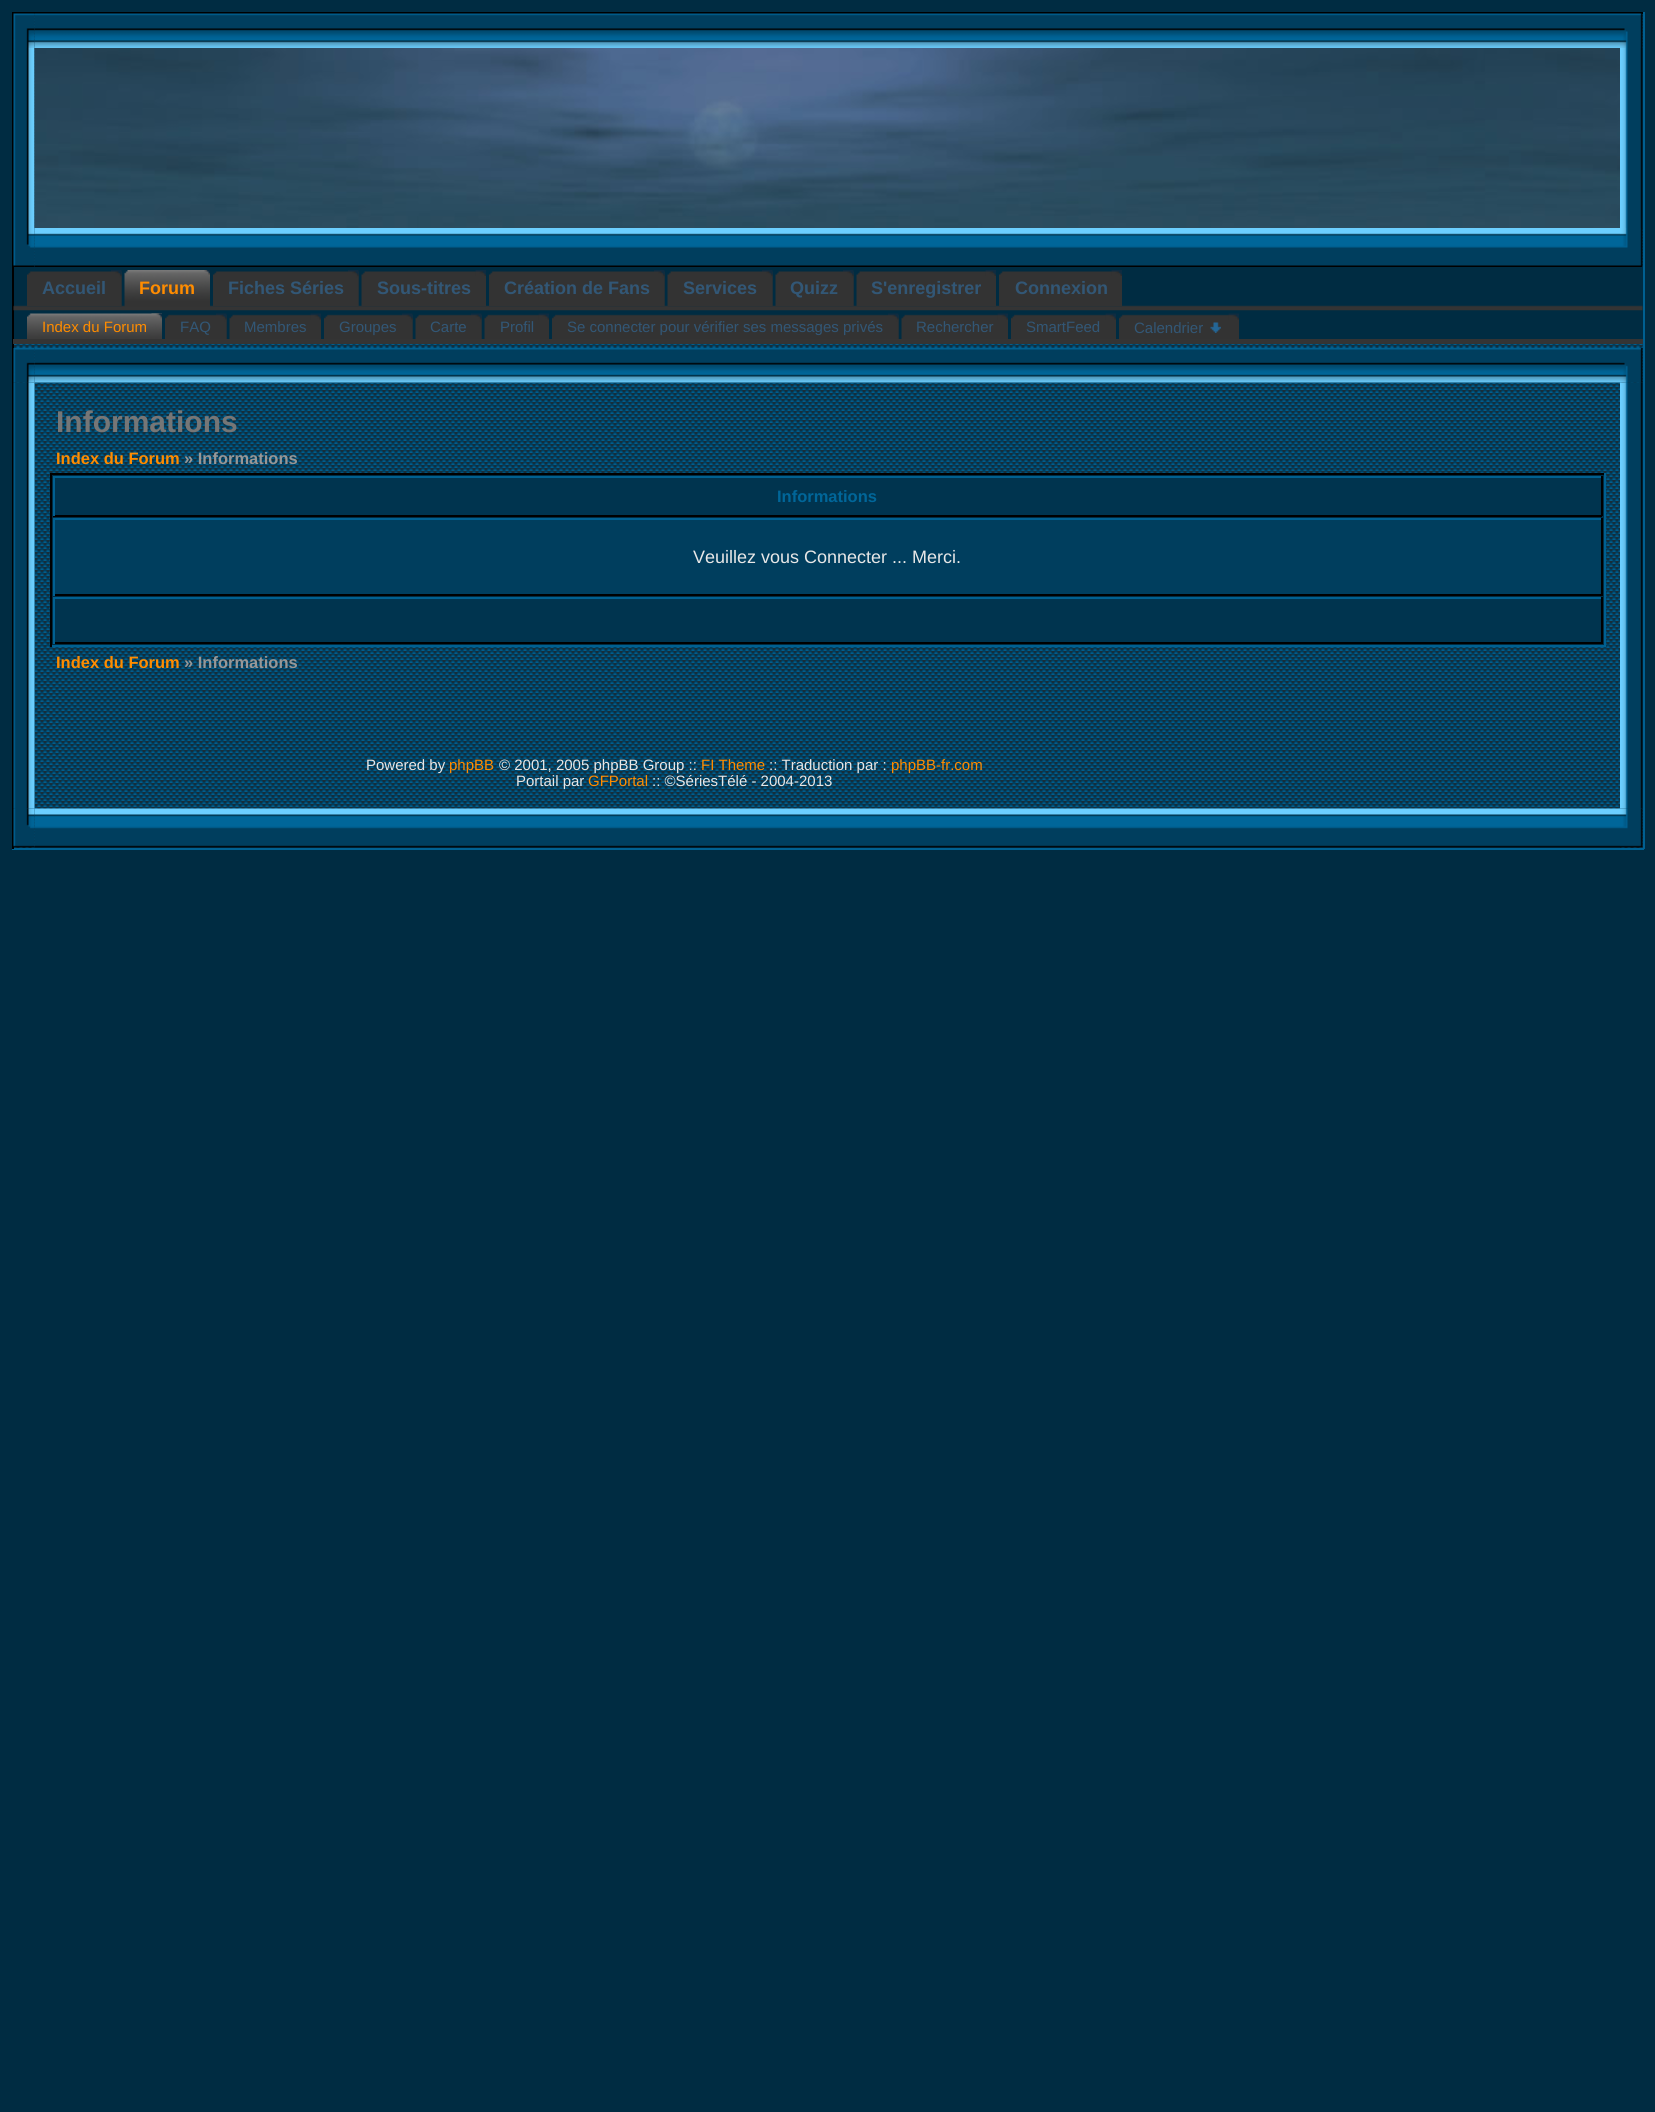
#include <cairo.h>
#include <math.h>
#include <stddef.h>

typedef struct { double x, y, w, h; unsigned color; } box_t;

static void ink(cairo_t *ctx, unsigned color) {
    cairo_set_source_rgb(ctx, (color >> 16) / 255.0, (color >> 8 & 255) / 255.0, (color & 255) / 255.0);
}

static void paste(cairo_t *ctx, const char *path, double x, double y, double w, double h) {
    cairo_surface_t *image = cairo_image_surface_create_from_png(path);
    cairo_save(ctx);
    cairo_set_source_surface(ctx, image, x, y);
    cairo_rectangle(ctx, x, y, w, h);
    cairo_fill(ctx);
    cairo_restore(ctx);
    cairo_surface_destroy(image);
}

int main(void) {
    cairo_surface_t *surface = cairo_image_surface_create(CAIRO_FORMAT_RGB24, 1655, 2112);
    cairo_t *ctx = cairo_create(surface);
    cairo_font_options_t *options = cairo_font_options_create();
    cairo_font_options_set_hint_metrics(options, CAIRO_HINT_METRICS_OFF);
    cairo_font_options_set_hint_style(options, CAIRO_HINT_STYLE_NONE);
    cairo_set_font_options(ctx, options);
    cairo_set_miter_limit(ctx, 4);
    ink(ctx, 0x002C42);
    cairo_paint(ctx);
    paste(ctx, "media/1.png", 14, 14, 1629, 834);
    {
        static const box_t items[] = {
            {12, 12, 1632, 2, 0x000000},
            {1643, 12, 2, 837, 0x006091},
            {12, 848, 1632, 2, 0x006091},
            {12, 12, 2, 837, 0x000000},
        };
        for (size_t i = 0; i < sizeof items / sizeof *items; i++) {
            ink(ctx, items[i].color);
            cairo_rectangle(ctx, items[i].x, items[i].y, items[i].w, items[i].h);
            cairo_fill(ctx);
        }
    }
    paste(ctx, "media/3.png", 34, 13, 1586, 35);
    paste(ctx, "media/2.png", 13, 13, 22, 35);
    paste(ctx, "media/4.png", 1620, 13, 23, 35);
    paste(ctx, "media/5.png", 13, 48, 22, 180);
    paste(ctx, "media/6.png", 34, 48, 1586, 180);
    ink(ctx, 0x003E5E);
    cairo_rectangle(ctx, 1642, 48, 1, 180);
    cairo_fill(ctx);
    paste(ctx, "media/7.png", 1620, 48, 23, 180);
    paste(ctx, "media/9.png", 34, 228, 1586, 39);
    paste(ctx, "media/8.png", 13, 228, 22, 39);
    paste(ctx, "media/10.png", 1620, 228, 23, 39);
    ink(ctx, 0x002C42);
    cairo_rectangle(ctx, 14, 267, 1629, 72);
    cairo_fill(ctx);
    paste(ctx, "media/11.png", 13, 305, 1630, 6);
    paste(ctx, "media/12.png", 27, 271, 95, 35);
    paste(ctx, "media/13.png", 111, 270, 11, 36);
    cairo_select_font_face(ctx, "Liberation Sans", CAIRO_FONT_SLANT_NORMAL, CAIRO_FONT_WEIGHT_BOLD);
    cairo_set_font_size(ctx, 18);
    ink(ctx, 0x325776);
    cairo_move_to(ctx, 42, 294);
    cairo_show_text(ctx, "Accueil");
    paste(ctx, "media/14.png", 124, 270, 86, 37);
    paste(ctx, "media/15.png", 204, 270, 6, 5);
    ink(ctx, 0xFF8C00);
    cairo_move_to(ctx, 139, 294);
    cairo_show_text(ctx, "Forum");
    paste(ctx, "media/16.png", 213, 271, 146, 35);
    paste(ctx, "media/17.png", 348, 270, 11, 36);
    ink(ctx, 0x325776);
    cairo_move_to(ctx, 228, 294);
    cairo_show_text(ctx, "Fiches Séries");
    paste(ctx, "media/18.png", 361, 271, 125, 35);
    paste(ctx, "media/19.png", 475, 270, 11, 6);
    cairo_move_to(ctx, 377, 294);
    cairo_show_text(ctx, "Sous-titres");
    paste(ctx, "media/20.png", 489, 271, 176, 35);
    paste(ctx, "media/13.png", 654, 270, 11, 36);
    cairo_move_to(ctx, 504, 294);
    cairo_show_text(ctx, "Création de Fans");
    paste(ctx, "media/21.png", 667, 271, 106, 35);
    paste(ctx, "media/13.png", 762, 270, 11, 36);
    cairo_move_to(ctx, 683, 294);
    cairo_show_text(ctx, "Services");
    paste(ctx, "media/22.png", 775, 271, 79, 35);
    paste(ctx, "media/13.png", 843, 270, 11, 36);
    cairo_move_to(ctx, 790, 294);
    cairo_show_text(ctx, "Quizz");
    paste(ctx, "media/23.png", 856, 271, 140, 35);
    paste(ctx, "media/19.png", 985, 270, 11, 6);
    cairo_move_to(ctx, 871, 294);
    cairo_show_text(ctx, "S'enregistrer");
    paste(ctx, "media/24.png", 999, 271, 123, 35);
    paste(ctx, "media/19.png", 1111, 270, 11, 6);
    cairo_move_to(ctx, 1015, 294);
    cairo_show_text(ctx, "Connexion");
    ink(ctx, 0x343434);
    cairo_rectangle(ctx, 13, 339, 1630, 5);
    cairo_fill(ctx);
    paste(ctx, "media/25.png", 27, 313, 135, 26);
    paste(ctx, "media/26.png", 151, 313, 11, 6);
    cairo_select_font_face(ctx, "Liberation Sans", CAIRO_FONT_SLANT_NORMAL, CAIRO_FONT_WEIGHT_NORMAL);
    cairo_set_font_size(ctx, 15);
    ink(ctx, 0xFF8C00);
    cairo_move_to(ctx, 42, 332);
    cairo_show_text(ctx, "Index du Forum");
    paste(ctx, "media/27.png", 165, 314, 62, 25);
    paste(ctx, "media/28.png", 216, 313, 11, 26);
    ink(ctx, 0x325776);
    cairo_move_to(ctx, 180, 332);
    cairo_show_text(ctx, "FAQ");
    paste(ctx, "media/29.png", 229, 314, 92, 25);
    paste(ctx, "media/30.png", 310, 313, 11, 7);
    cairo_move_to(ctx, 244, 332);
    cairo_show_text(ctx, "Membres");
    paste(ctx, "media/31.png", 324, 314, 89, 25);
    paste(ctx, "media/32.png", 402, 313, 11, 26);
    cairo_move_to(ctx, 339, 332);
    cairo_show_text(ctx, "Groupes");
    paste(ctx, "media/33.png", 415, 314, 67, 25);
    paste(ctx, "media/32.png", 471, 313, 11, 26);
    cairo_move_to(ctx, 430, 332);
    cairo_show_text(ctx, "Carte");
    paste(ctx, "media/34.png", 484, 314, 65, 25);
    paste(ctx, "media/35.png", 538, 313, 11, 7);
    cairo_move_to(ctx, 500, 332);
    cairo_show_text(ctx, "Profil");
    paste(ctx, "media/36.png", 552, 314, 347, 25);
    paste(ctx, "media/28.png", 888, 313, 11, 26);
    cairo_move_to(ctx, 567, 332);
    cairo_show_text(ctx, "Se connecter pour vérifier ses messages privés");
    paste(ctx, "media/37.png", 901, 314, 107, 25);
    paste(ctx, "media/30.png", 997, 313, 11, 7);
    cairo_move_to(ctx, 916, 332);
    cairo_show_text(ctx, "Rechercher");
    paste(ctx, "media/38.png", 1011, 314, 105, 25);
    paste(ctx, "media/30.png", 1105, 313, 11, 7);
    cairo_move_to(ctx, 1026, 332);
    cairo_show_text(ctx, "SmartFeed");
    paste(ctx, "media/39.png", 1119, 314, 120, 25);
    paste(ctx, "media/30.png", 1228, 313, 11, 7);
    cairo_move_to(ctx, 1134, 333);
    cairo_show_text(ctx, "Calendrier");
    paste(ctx, "media/40.png", 1210, 322, 11, 11);
    ink(ctx, 0x003E5E);
    cairo_rectangle(ctx, 35, 382, 1585, 1);
    cairo_fill(ctx);
    paste(ctx, "media/42.png", 34, 348, 1586, 35);
    cairo_rectangle(ctx, 14, 383, 21, 426);
    cairo_fill(ctx);
    paste(ctx, "media/44.png", 13, 382, 22, 427);
    paste(ctx, "media/41.png", 13, 348, 22, 35);
    cairo_rectangle(ctx, 1620, 383, 23, 426);
    cairo_fill(ctx);
    paste(ctx, "media/45.png", 1620, 382, 23, 427);
    paste(ctx, "media/43.png", 1620, 348, 23, 35);
    cairo_select_font_face(ctx, "Liberation Sans", CAIRO_FONT_SLANT_NORMAL, CAIRO_FONT_WEIGHT_BOLD);
    cairo_set_font_size(ctx, 30);
    ink(ctx, 0x767676);
    cairo_move_to(ctx, 56, 432);
    cairo_show_text(ctx, "Informations");
    cairo_set_font_size(ctx, 16.5);
    ink(ctx, 0xFF8C00);
    cairo_move_to(ctx, 56, 464);
    cairo_show_text(ctx, "Index du Forum");
    ink(ctx, 0x979797);
    cairo_move_to(ctx, 184, 464);
    cairo_show_text(ctx, "» Informations");
    {
        static const box_t items[] = {
            {52, 475, 1552, 170, 0x002C42},
            {50, 473, 1555, 2, 0x000000},
            {1604, 473, 2, 174, 0x006091},
            {50, 645, 1555, 2, 0x006091},
            {50, 473, 2, 174, 0x000000},
            {55, 478, 1546, 37, 0x00344F},
            {53, 476, 1549, 2, 0x006091},
            {1601, 476, 2, 40, 0x000000},
            {53, 515, 1549, 2, 0x000000},
            {53, 476, 2, 40, 0x006091},
        };
        for (size_t i = 0; i < sizeof items / sizeof *items; i++) {
            ink(ctx, items[i].color);
            cairo_rectangle(ctx, items[i].x, items[i].y, items[i].w, items[i].h);
            cairo_fill(ctx);
        }
    }
    ink(ctx, 0x006699);
    cairo_move_to(ctx, 777, 502);
    cairo_show_text(ctx, "Informations");
    {
        static const box_t items[] = {
            {55, 520, 1546, 74, 0x003E5E},
            {53, 518, 1549, 2, 0x006091},
            {1601, 518, 2, 78, 0x000000},
            {53, 594, 1549, 2, 0x000000},
            {53, 518, 2, 78, 0x006091},
        };
        for (size_t i = 0; i < sizeof items / sizeof *items; i++) {
            ink(ctx, items[i].color);
            cairo_rectangle(ctx, items[i].x, items[i].y, items[i].w, items[i].h);
            cairo_fill(ctx);
        }
    }
    cairo_select_font_face(ctx, "Liberation Sans", CAIRO_FONT_SLANT_NORMAL, CAIRO_FONT_WEIGHT_NORMAL);
    cairo_set_font_size(ctx, 18);
    ink(ctx, 0xE7E7E7);
    cairo_move_to(ctx, 693, 563);
    cairo_show_text(ctx, "Veuillez vous Connecter ... Merci.");
    {
        static const box_t items[] = {
            {55, 599, 1546, 43, 0x00344F},
            {53, 597, 1549, 2, 0x006091},
            {1601, 597, 2, 47, 0x000000},
            {53, 642, 1549, 2, 0x000000},
            {53, 597, 2, 47, 0x006091},
        };
        for (size_t i = 0; i < sizeof items / sizeof *items; i++) {
            ink(ctx, items[i].color);
            cairo_rectangle(ctx, items[i].x, items[i].y, items[i].w, items[i].h);
            cairo_fill(ctx);
        }
    }
    cairo_select_font_face(ctx, "Liberation Sans", CAIRO_FONT_SLANT_NORMAL, CAIRO_FONT_WEIGHT_BOLD);
    cairo_set_font_size(ctx, 16.5);
    ink(ctx, 0xFF8C00);
    cairo_move_to(ctx, 56, 668);
    cairo_show_text(ctx, "Index du Forum");
    ink(ctx, 0x979797);
    cairo_move_to(ctx, 184, 668);
    cairo_show_text(ctx, "» Informations");
    cairo_select_font_face(ctx, "Liberation Sans", CAIRO_FONT_SLANT_NORMAL, CAIRO_FONT_WEIGHT_NORMAL);
    cairo_set_font_size(ctx, 15);
    ink(ctx, 0xE7E7E7);
    cairo_move_to(ctx, 366, 770);
    cairo_show_text(ctx, "Powered by");
    ink(ctx, 0xFF8C00);
    cairo_move_to(ctx, 449, 770);
    cairo_show_text(ctx, "phpBB");
    ink(ctx, 0xE7E7E7);
    cairo_move_to(ctx, 499, 770);
    cairo_show_text(ctx, "© 2001, 2005 phpBB Group ::");
    ink(ctx, 0xFF8C00);
    cairo_move_to(ctx, 701, 770);
    cairo_show_text(ctx, "FI Theme");
    ink(ctx, 0xE7E7E7);
    cairo_move_to(ctx, 769, 770);
    cairo_show_text(ctx, ":: Traduction par :");
    ink(ctx, 0xFF8C00);
    cairo_move_to(ctx, 891, 770);
    cairo_show_text(ctx, "phpBB-fr.com");
    ink(ctx, 0xE7E7E7);
    cairo_move_to(ctx, 516, 786);
    cairo_show_text(ctx, "Portail par");
    ink(ctx, 0xFF8C00);
    cairo_move_to(ctx, 588, 786);
    cairo_show_text(ctx, "GFPortal");
    ink(ctx, 0xE7E7E7);
    cairo_move_to(ctx, 652, 786);
    cairo_show_text(ctx, ":: ©SériesTélé - 2004-2013");
    ink(ctx, 0x003E5E);
    cairo_rectangle(ctx, 35, 847, 1585, 1);
    cairo_fill(ctx);
    paste(ctx, "media/47.png", 34, 808, 1586, 40);
    paste(ctx, "media/46.png", 13, 808, 22, 40);
    paste(ctx, "media/48.png", 1620, 808, 23, 40);
    cairo_surface_write_to_png(surface, "image.png");
    cairo_font_options_destroy(options);
    cairo_destroy(ctx);
    cairo_surface_destroy(surface);
    return 0;
}
